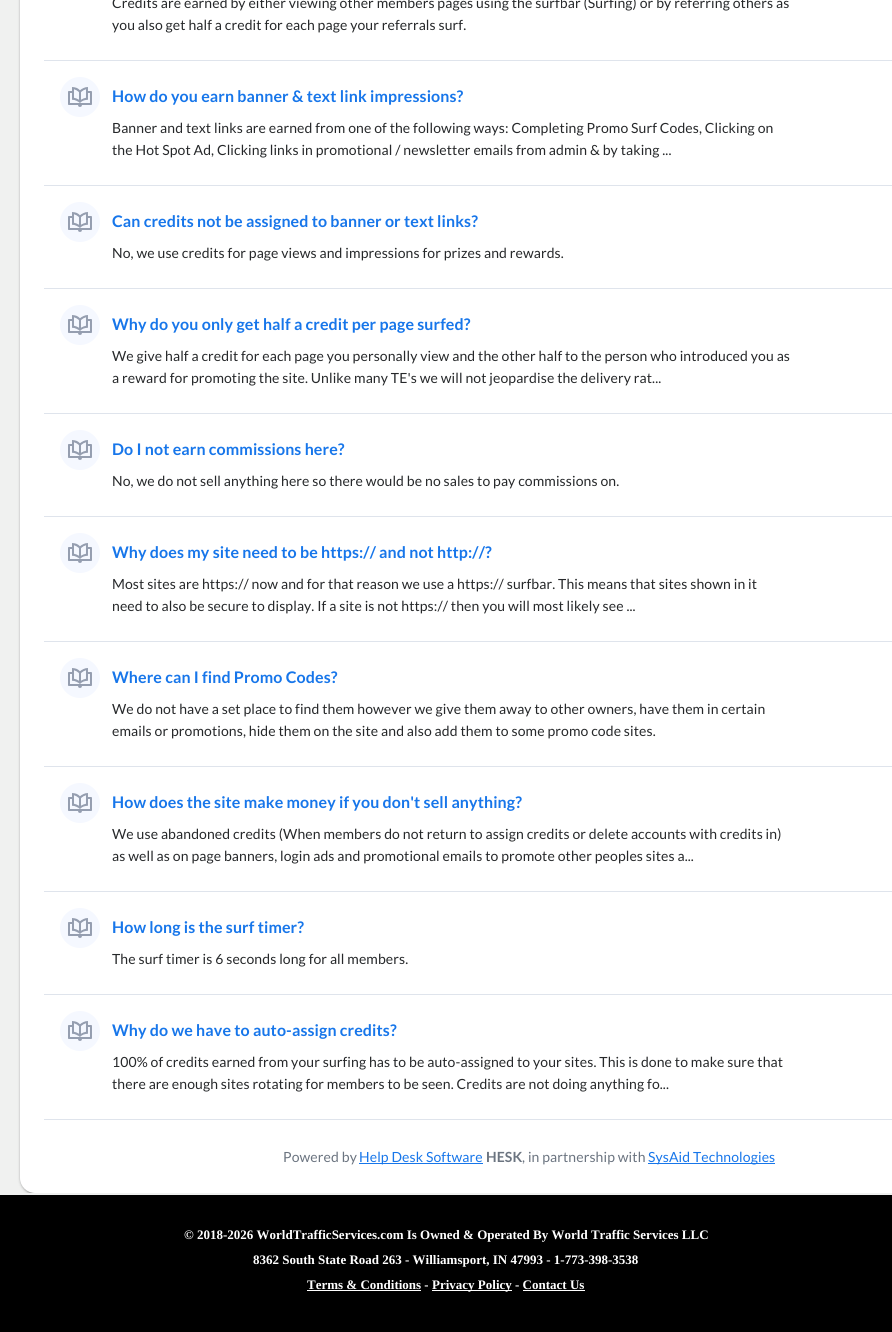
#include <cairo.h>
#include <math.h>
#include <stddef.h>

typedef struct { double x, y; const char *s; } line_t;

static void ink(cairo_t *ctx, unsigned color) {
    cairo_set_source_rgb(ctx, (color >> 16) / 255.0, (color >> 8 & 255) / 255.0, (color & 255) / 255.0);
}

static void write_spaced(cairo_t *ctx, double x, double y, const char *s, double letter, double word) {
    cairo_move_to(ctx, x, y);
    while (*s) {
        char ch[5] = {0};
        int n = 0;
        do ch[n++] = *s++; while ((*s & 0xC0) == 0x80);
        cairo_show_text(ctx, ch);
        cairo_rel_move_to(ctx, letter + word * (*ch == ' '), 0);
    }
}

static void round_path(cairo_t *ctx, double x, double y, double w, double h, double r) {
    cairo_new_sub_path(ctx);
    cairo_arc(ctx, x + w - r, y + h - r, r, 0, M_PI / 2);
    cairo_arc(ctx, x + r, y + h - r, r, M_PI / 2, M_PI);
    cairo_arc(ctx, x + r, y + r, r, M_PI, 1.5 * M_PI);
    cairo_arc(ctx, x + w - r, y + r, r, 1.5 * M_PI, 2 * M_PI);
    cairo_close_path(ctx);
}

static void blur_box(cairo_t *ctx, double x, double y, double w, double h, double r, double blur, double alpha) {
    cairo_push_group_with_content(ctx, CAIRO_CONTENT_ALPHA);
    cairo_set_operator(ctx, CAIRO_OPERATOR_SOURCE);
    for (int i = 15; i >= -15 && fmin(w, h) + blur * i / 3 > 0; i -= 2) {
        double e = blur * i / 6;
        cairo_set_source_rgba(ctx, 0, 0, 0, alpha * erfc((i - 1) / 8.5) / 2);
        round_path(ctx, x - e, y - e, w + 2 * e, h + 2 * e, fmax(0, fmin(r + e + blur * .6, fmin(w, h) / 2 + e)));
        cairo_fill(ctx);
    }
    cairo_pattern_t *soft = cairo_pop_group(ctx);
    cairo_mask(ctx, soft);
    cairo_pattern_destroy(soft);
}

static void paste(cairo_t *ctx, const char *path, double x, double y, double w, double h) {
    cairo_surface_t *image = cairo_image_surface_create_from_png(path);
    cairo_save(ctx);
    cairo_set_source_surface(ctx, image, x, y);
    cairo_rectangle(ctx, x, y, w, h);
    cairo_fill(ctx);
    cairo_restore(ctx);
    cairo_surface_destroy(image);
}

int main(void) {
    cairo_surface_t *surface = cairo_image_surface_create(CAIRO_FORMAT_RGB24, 892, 1332);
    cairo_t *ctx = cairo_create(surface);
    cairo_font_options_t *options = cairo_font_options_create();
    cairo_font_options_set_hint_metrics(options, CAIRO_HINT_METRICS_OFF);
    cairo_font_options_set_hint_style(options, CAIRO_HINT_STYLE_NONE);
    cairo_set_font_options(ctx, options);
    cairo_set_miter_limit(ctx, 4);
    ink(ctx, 0xF0F1F0);
    cairo_paint(ctx);
    ink(ctx, 0x666666);
    blur_box(ctx, 21, -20, 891, 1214, 15, 1.5, 1);
    ink(ctx, 0xFFFFFF);
    round_path(ctx, 20, -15, 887, 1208, 15);
    cairo_fill(ctx);
    ink(ctx, 0xDFE4EC);
    cairo_rectangle(ctx, 44, 60, 848, 1);
    cairo_fill(ctx);
    cairo_select_font_face(ctx, "Lato", CAIRO_FONT_SLANT_NORMAL, CAIRO_FONT_WEIGHT_NORMAL);
    cairo_set_font_size(ctx, 14);
    ink(ctx, 0x26282A);
    write_spaced(ctx, 112, 8, "Credits are earned by either viewing other members pages using the surfbar (Surfing) or by referring others as", 0.1, 0);
    write_spaced(ctx, 112, 30, "you also get half a credit for each page your referrals surf.", 0.1, 0);
    ink(ctx, 0xDFE4EC);
    cairo_rectangle(ctx, 44, 185, 848, 1);
    cairo_fill(ctx);
    ink(ctx, 0xF5F8FF);
    cairo_arc(ctx, 80, 97, 20, 0, 2 * M_PI);
    cairo_fill(ctx);
    paste(ctx, "media/1.png", 68, 87, 24, 20);
    cairo_select_font_face(ctx, "Lato", CAIRO_FONT_SLANT_NORMAL, CAIRO_FONT_WEIGHT_BOLD);
    cairo_set_font_size(ctx, 16);
    ink(ctx, 0x1776EA);
    write_spaced(ctx, 112, 102, "How do you earn banner & text link impressions?", 0.1, 0);
    cairo_select_font_face(ctx, "Lato", CAIRO_FONT_SLANT_NORMAL, CAIRO_FONT_WEIGHT_NORMAL);
    cairo_set_font_size(ctx, 14);
    ink(ctx, 0x26282A);
    write_spaced(ctx, 112, 133, "Banner and text links are earned from one of the following ways: Completing Promo Surf Codes, Clicking on", 0.1, 0);
    write_spaced(ctx, 112, 155, "the Hot Spot Ad, Clicking links in promotional / newsletter emails from admin & by taking ...", 0.1, 0);
    ink(ctx, 0xDFE4EC);
    cairo_rectangle(ctx, 44, 288, 848, 1);
    cairo_fill(ctx);
    ink(ctx, 0xF5F8FF);
    cairo_arc(ctx, 80, 222, 20, 0, 2 * M_PI);
    cairo_fill(ctx);
    paste(ctx, "media/1.png", 68, 212, 24, 20);
    cairo_select_font_face(ctx, "Lato", CAIRO_FONT_SLANT_NORMAL, CAIRO_FONT_WEIGHT_BOLD);
    cairo_set_font_size(ctx, 16);
    ink(ctx, 0x1776EA);
    write_spaced(ctx, 112, 227, "Can credits not be assigned to banner or text links?", 0.1, 0);
    cairo_select_font_face(ctx, "Lato", CAIRO_FONT_SLANT_NORMAL, CAIRO_FONT_WEIGHT_NORMAL);
    cairo_set_font_size(ctx, 14);
    ink(ctx, 0x26282A);
    write_spaced(ctx, 112, 258, "No, we use credits for page views and impressions for prizes and rewards.", 0.1, 0);
    ink(ctx, 0xDFE4EC);
    cairo_rectangle(ctx, 44, 413, 848, 1);
    cairo_fill(ctx);
    ink(ctx, 0xF5F8FF);
    cairo_arc(ctx, 80, 325, 20, 0, 2 * M_PI);
    cairo_fill(ctx);
    paste(ctx, "media/1.png", 68, 315, 24, 20);
    cairo_select_font_face(ctx, "Lato", CAIRO_FONT_SLANT_NORMAL, CAIRO_FONT_WEIGHT_BOLD);
    cairo_set_font_size(ctx, 16);
    ink(ctx, 0x1776EA);
    write_spaced(ctx, 112, 330, "Why do you only get half a credit per page surfed?", 0.1, 0);
    cairo_select_font_face(ctx, "Lato", CAIRO_FONT_SLANT_NORMAL, CAIRO_FONT_WEIGHT_NORMAL);
    cairo_set_font_size(ctx, 14);
    ink(ctx, 0x26282A);
    write_spaced(ctx, 112, 361, "We give half a credit for each page you personally view and the other half to the person who introduced you as", 0.1, 0);
    write_spaced(ctx, 112, 383, "a reward for promoting the site. Unlike many TE's we will not jeopardise the delivery rat...", 0.1, 0);
    ink(ctx, 0xDFE4EC);
    cairo_rectangle(ctx, 44, 516, 848, 1);
    cairo_fill(ctx);
    ink(ctx, 0xF5F8FF);
    cairo_arc(ctx, 80, 450, 20, 0, 2 * M_PI);
    cairo_fill(ctx);
    paste(ctx, "media/1.png", 68, 440, 24, 20);
    cairo_select_font_face(ctx, "Lato", CAIRO_FONT_SLANT_NORMAL, CAIRO_FONT_WEIGHT_BOLD);
    cairo_set_font_size(ctx, 16);
    ink(ctx, 0x1776EA);
    write_spaced(ctx, 112, 455, "Do I not earn commissions here?", 0.1, 0);
    cairo_select_font_face(ctx, "Lato", CAIRO_FONT_SLANT_NORMAL, CAIRO_FONT_WEIGHT_NORMAL);
    cairo_set_font_size(ctx, 14);
    ink(ctx, 0x26282A);
    write_spaced(ctx, 112, 486, "No, we do not sell anything here so there would be no sales to pay commissions on.", 0.1, 0);
    ink(ctx, 0xDFE4EC);
    cairo_rectangle(ctx, 44, 641, 848, 1);
    cairo_fill(ctx);
    ink(ctx, 0xF5F8FF);
    cairo_arc(ctx, 80, 553, 20, 0, 2 * M_PI);
    cairo_fill(ctx);
    paste(ctx, "media/1.png", 68, 543, 24, 20);
    cairo_select_font_face(ctx, "Lato", CAIRO_FONT_SLANT_NORMAL, CAIRO_FONT_WEIGHT_BOLD);
    cairo_set_font_size(ctx, 16);
    ink(ctx, 0x1776EA);
    write_spaced(ctx, 112, 558, "Why does my site need to be https:// and not http://?", 0.1, 0);
    cairo_select_font_face(ctx, "Lato", CAIRO_FONT_SLANT_NORMAL, CAIRO_FONT_WEIGHT_NORMAL);
    cairo_set_font_size(ctx, 14);
    ink(ctx, 0x26282A);
    write_spaced(ctx, 112, 589, "Most sites are https:// now and for that reason we use a https:// surfbar. This means that sites shown in it", 0.1, 0);
    write_spaced(ctx, 112, 611, "need to also be secure to display. If a site is not https:// then you will most likely see ...", 0.1, 0);
    ink(ctx, 0xDFE4EC);
    cairo_rectangle(ctx, 44, 766, 848, 1);
    cairo_fill(ctx);
    ink(ctx, 0xF5F8FF);
    cairo_arc(ctx, 80, 678, 20, 0, 2 * M_PI);
    cairo_fill(ctx);
    paste(ctx, "media/1.png", 68, 668, 24, 20);
    cairo_select_font_face(ctx, "Lato", CAIRO_FONT_SLANT_NORMAL, CAIRO_FONT_WEIGHT_BOLD);
    cairo_set_font_size(ctx, 16);
    ink(ctx, 0x1776EA);
    write_spaced(ctx, 112, 683, "Where can I find Promo Codes?", 0.1, 0);
    cairo_select_font_face(ctx, "Lato", CAIRO_FONT_SLANT_NORMAL, CAIRO_FONT_WEIGHT_NORMAL);
    cairo_set_font_size(ctx, 14);
    ink(ctx, 0x26282A);
    write_spaced(ctx, 112, 714, "We do not have a set place to find them however we give them away to other owners, have them in certain", 0.1, 0);
    write_spaced(ctx, 112, 736, "emails or promotions, hide them on the site and also add them to some promo code sites.", 0.1, 0);
    ink(ctx, 0xDFE4EC);
    cairo_rectangle(ctx, 44, 891, 848, 1);
    cairo_fill(ctx);
    ink(ctx, 0xF5F8FF);
    cairo_arc(ctx, 80, 803, 20, 0, 2 * M_PI);
    cairo_fill(ctx);
    paste(ctx, "media/1.png", 68, 793, 24, 20);
    cairo_select_font_face(ctx, "Lato", CAIRO_FONT_SLANT_NORMAL, CAIRO_FONT_WEIGHT_BOLD);
    cairo_set_font_size(ctx, 16);
    ink(ctx, 0x1776EA);
    write_spaced(ctx, 112, 808, "How does the site make money if you don't sell anything?", 0.1, 0);
    cairo_select_font_face(ctx, "Lato", CAIRO_FONT_SLANT_NORMAL, CAIRO_FONT_WEIGHT_NORMAL);
    cairo_set_font_size(ctx, 14);
    ink(ctx, 0x26282A);
    write_spaced(ctx, 112, 839, "We use abandoned credits (When members do not return to assign credits or delete accounts with credits in)", 0.1, 0);
    write_spaced(ctx, 112, 861, "as well as on page banners, login ads and promotional emails to promote other peoples sites a...", 0.1, 0);
    ink(ctx, 0xDFE4EC);
    cairo_rectangle(ctx, 44, 994, 848, 1);
    cairo_fill(ctx);
    ink(ctx, 0xF5F8FF);
    cairo_arc(ctx, 80, 928, 20, 0, 2 * M_PI);
    cairo_fill(ctx);
    paste(ctx, "media/1.png", 68, 918, 24, 20);
    cairo_select_font_face(ctx, "Lato", CAIRO_FONT_SLANT_NORMAL, CAIRO_FONT_WEIGHT_BOLD);
    cairo_set_font_size(ctx, 16);
    ink(ctx, 0x1776EA);
    write_spaced(ctx, 112, 933, "How long is the surf timer?", 0.1, 0);
    cairo_select_font_face(ctx, "Lato", CAIRO_FONT_SLANT_NORMAL, CAIRO_FONT_WEIGHT_NORMAL);
    cairo_set_font_size(ctx, 14);
    ink(ctx, 0x26282A);
    write_spaced(ctx, 112, 964, "The surf timer is 6 seconds long for all members.", 0.1, 0);
    ink(ctx, 0xDFE4EC);
    cairo_rectangle(ctx, 44, 1119, 848, 1);
    cairo_fill(ctx);
    ink(ctx, 0xF5F8FF);
    cairo_arc(ctx, 80, 1031, 20, 0, 2 * M_PI);
    cairo_fill(ctx);
    paste(ctx, "media/1.png", 68, 1021, 24, 20);
    cairo_select_font_face(ctx, "Lato", CAIRO_FONT_SLANT_NORMAL, CAIRO_FONT_WEIGHT_BOLD);
    cairo_set_font_size(ctx, 16);
    ink(ctx, 0x1776EA);
    write_spaced(ctx, 112, 1036, "Why do we have to auto-assign credits?", 0.1, 0);
    cairo_select_font_face(ctx, "Lato", CAIRO_FONT_SLANT_NORMAL, CAIRO_FONT_WEIGHT_NORMAL);
    cairo_set_font_size(ctx, 14);
    ink(ctx, 0x26282A);
    write_spaced(ctx, 112, 1067, "100% of credits earned from your surfing has to be auto-assigned to your sites. This is done to make sure that", 0.1, 0);
    write_spaced(ctx, 112, 1089, "there are enough sites rotating for members to be seen. Credits are not doing anything fo...", 0.1, 0);
    ink(ctx, 0x6B7480);
    write_spaced(ctx, 283, 1162, "Powered by", 0.1, 0);
    ink(ctx, 0x1776EA);
    cairo_rectangle(ctx, 359, 1163, 124, 1);
    cairo_fill(ctx);
    write_spaced(ctx, 359, 1162, "Help Desk Software", 0.1, 0);
    cairo_select_font_face(ctx, "Lato", CAIRO_FONT_SLANT_NORMAL, CAIRO_FONT_WEIGHT_BOLD);
    ink(ctx, 0x6B7480);
    write_spaced(ctx, 486, 1162, "HESK", 0.1, 0);
    cairo_select_font_face(ctx, "Lato", CAIRO_FONT_SLANT_NORMAL, CAIRO_FONT_WEIGHT_NORMAL);
    write_spaced(ctx, 522, 1162, ", in partnership with", 0.1, 0);
    ink(ctx, 0x1776EA);
    cairo_rectangle(ctx, 648, 1163, 127, 1);
    cairo_fill(ctx);
    write_spaced(ctx, 648, 1162, "SysAid Technologies", 0.1, 0);
    ink(ctx, 0xF0F1F0);
    cairo_rectangle(ctx, 25, 1193, 867, 2);
    cairo_fill(ctx);
    ink(ctx, 0x000000);
    cairo_rectangle(ctx, 0, 1195, 892, 137);
    cairo_fill(ctx);
    cairo_select_font_face(ctx, "Liberation Serif", CAIRO_FONT_SLANT_NORMAL, CAIRO_FONT_WEIGHT_BOLD);
    cairo_set_font_size(ctx, 13);
    ink(ctx, 0xFFFFFF);
    {
        static const line_t items[] = {
            {184, 1239, "© 2018-2026 WorldTrafficServices.com Is Owned & Operated By World Traffic Services LLC"},
            {253, 1264, "8362 South State Road 263 - Williamsport, IN 47993 - 1-773-398-3538"},
            {307, 1289, "Terms & Conditions -"},
        };
        for (size_t i = 0; i < sizeof items / sizeof *items; i++) {
            cairo_move_to(ctx, items[i].x, items[i].y);
            cairo_show_text(ctx, items[i].s);
        }
    }
    cairo_rectangle(ctx, 307, 1290, 114, 1);
    cairo_fill(ctx);
    cairo_rectangle(ctx, 432, 1290, 80, 1);
    cairo_fill(ctx);
    cairo_move_to(ctx, 432, 1289);
    cairo_show_text(ctx, "Privacy Policy - Contact Us");
    cairo_rectangle(ctx, 523, 1290, 62, 1);
    cairo_fill(ctx);
    cairo_surface_write_to_png(surface, "image.png");
    cairo_font_options_destroy(options);
    cairo_destroy(ctx);
    cairo_surface_destroy(surface);
    return 0;
}
